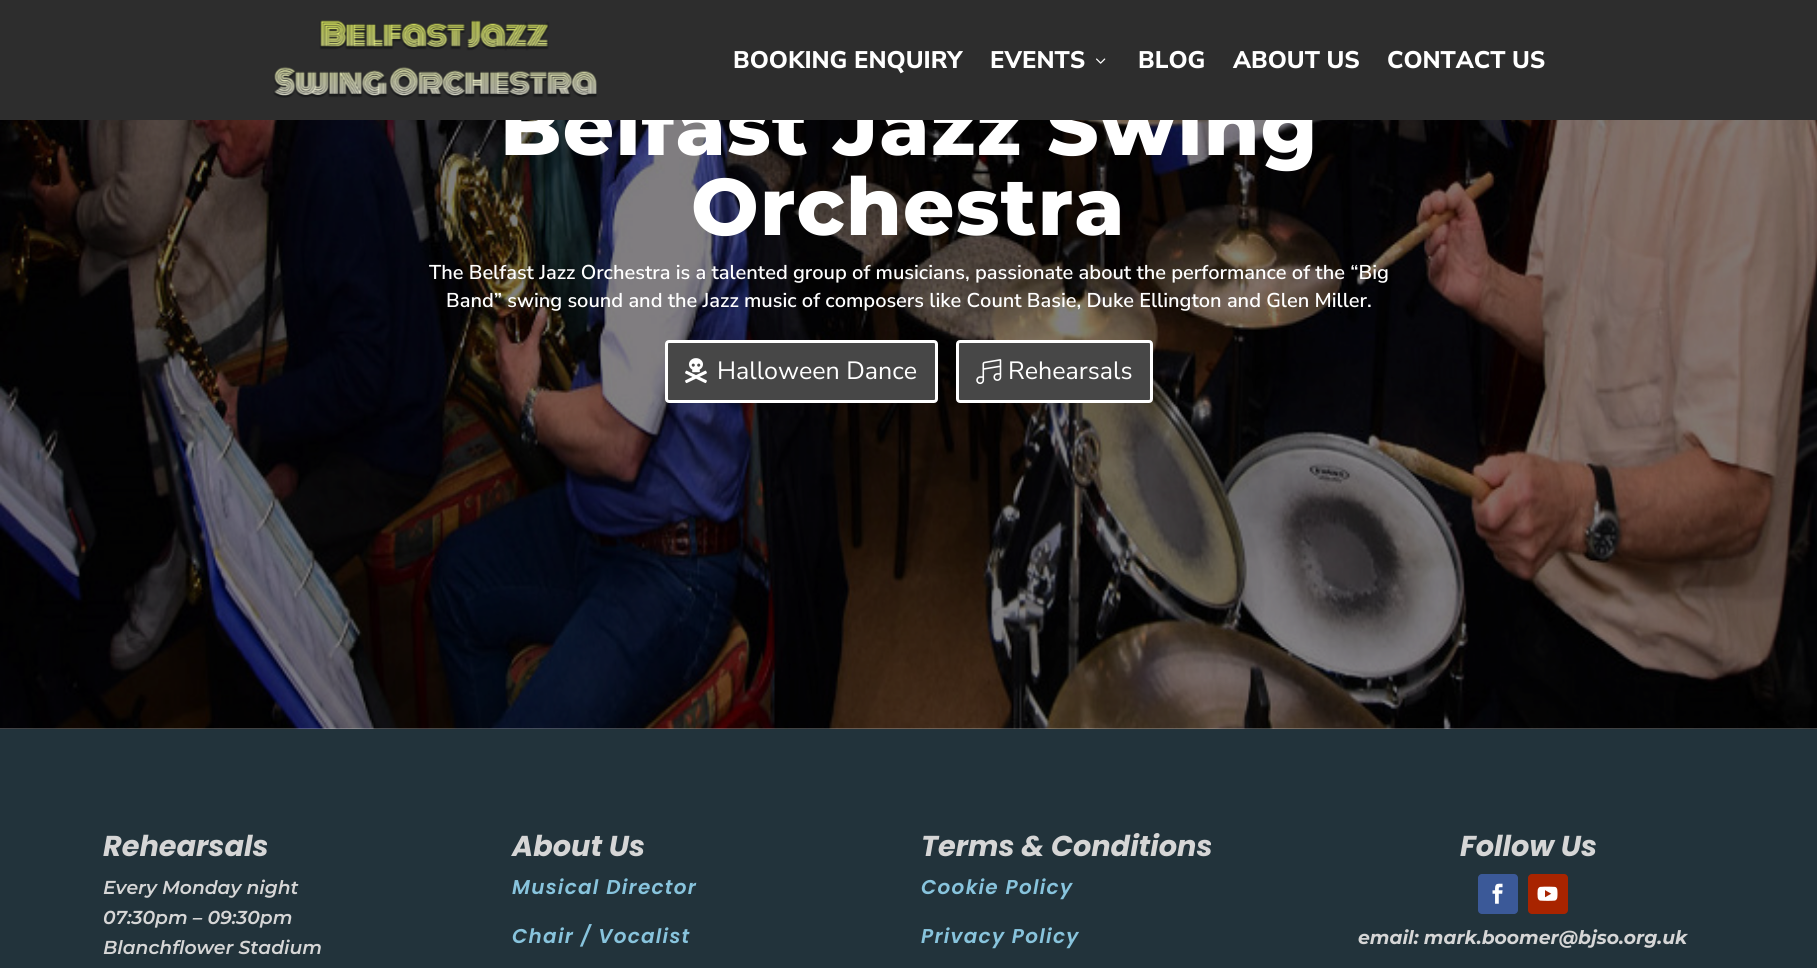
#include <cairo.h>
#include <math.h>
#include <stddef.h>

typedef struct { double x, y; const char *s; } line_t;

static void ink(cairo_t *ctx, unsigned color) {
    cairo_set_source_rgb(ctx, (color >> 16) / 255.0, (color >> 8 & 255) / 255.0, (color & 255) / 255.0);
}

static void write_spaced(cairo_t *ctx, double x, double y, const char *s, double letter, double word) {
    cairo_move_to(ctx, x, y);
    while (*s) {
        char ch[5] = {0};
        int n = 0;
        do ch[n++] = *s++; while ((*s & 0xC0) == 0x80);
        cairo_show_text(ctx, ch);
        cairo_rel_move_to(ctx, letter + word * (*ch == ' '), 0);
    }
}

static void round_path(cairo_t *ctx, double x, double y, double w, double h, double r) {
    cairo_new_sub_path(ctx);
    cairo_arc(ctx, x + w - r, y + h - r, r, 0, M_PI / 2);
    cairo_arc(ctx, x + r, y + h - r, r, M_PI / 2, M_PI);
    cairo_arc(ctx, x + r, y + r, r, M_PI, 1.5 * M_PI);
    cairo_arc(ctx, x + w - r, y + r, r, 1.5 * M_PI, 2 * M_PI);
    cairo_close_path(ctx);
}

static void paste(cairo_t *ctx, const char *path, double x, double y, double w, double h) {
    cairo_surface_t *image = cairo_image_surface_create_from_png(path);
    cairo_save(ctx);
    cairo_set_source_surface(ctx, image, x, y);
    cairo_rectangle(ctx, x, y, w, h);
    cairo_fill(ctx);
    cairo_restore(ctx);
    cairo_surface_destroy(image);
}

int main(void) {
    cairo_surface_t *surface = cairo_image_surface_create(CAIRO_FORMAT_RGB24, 1817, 968);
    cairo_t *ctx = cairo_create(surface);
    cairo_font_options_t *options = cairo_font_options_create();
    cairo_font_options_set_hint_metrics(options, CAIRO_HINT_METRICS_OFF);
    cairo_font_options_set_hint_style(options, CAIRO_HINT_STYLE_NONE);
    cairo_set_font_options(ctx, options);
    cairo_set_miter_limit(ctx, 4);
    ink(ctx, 0xFFFFFF);
    cairo_paint(ctx);
    paste(ctx, "media/3.png", 0, 120, 1817, 609);
    cairo_select_font_face(ctx, "Montserrat ExtraBold", CAIRO_FONT_SLANT_NORMAL, CAIRO_FONT_WEIGHT_NORMAL);
    cairo_set_font_size(ctx, 80);
    ink(ctx, 0xFFFFFF);
    write_spaced(ctx, 500, 155, "Belfast Jazz Swing", 1.25, 0);
    ink(ctx, 0x2D2D2D);
    cairo_rectangle(ctx, 0, 0, 1817, 120);
    cairo_fill(ctx);
    paste(ctx, "media/1.png", 273, 20, 324, 78);
    cairo_select_font_face(ctx, "Nunito Sans ExtraBold", CAIRO_FONT_SLANT_NORMAL, CAIRO_FONT_WEIGHT_NORMAL);
    cairo_set_font_size(ctx, 24);
    ink(ctx, 0xFFFFFF);
    cairo_move_to(ctx, 733, 68);
    cairo_show_text(ctx, "BOOKING ENQUIRY");
    cairo_move_to(ctx, 990, 68);
    cairo_show_text(ctx, "EVENTS");
    paste(ctx, "media/2.png", 1096, 58, 10, 6);
    {
        static const line_t items[] = {
            {1138, 68, "BLOG"},
            {1233, 68, "ABOUT US"},
            {1387, 68, "CONTACT US"},
        };
        for (size_t i = 0; i < sizeof items / sizeof *items; i++) {
            cairo_move_to(ctx, items[i].x, items[i].y);
            cairo_show_text(ctx, items[i].s);
        }
    }
    cairo_select_font_face(ctx, "Montserrat ExtraBold", CAIRO_FONT_SLANT_NORMAL, CAIRO_FONT_WEIGHT_NORMAL);
    cairo_set_font_size(ctx, 80);
    write_spaced(ctx, 691, 235, "Orchestra", 1.25, 0);
    cairo_select_font_face(ctx, "Nunito Sans SemiBold", CAIRO_FONT_SLANT_NORMAL, CAIRO_FONT_WEIGHT_NORMAL);
    cairo_set_font_size(ctx, 20);
    cairo_move_to(ctx, 429, 279);
    cairo_show_text(ctx, "The Belfast Jazz Orchestra is a talented group of musicians, passionate about the performance of the “Big");
    cairo_move_to(ctx, 446, 307);
    cairo_show_text(ctx, "Band” swing sound and the Jazz music of composers like Count Basie, Duke Ellington and Glen Miller.");
    ink(ctx, 0x474747);
    round_path(ctx, 666.5, 341.5, 270, 60, 2.5);
    cairo_fill_preserve(ctx);
    ink(ctx, 0xFFFFFF);
    cairo_set_line_width(ctx, 3);
    cairo_stroke(ctx);
    paste(ctx, "media/4.png", 685, 358, 22, 26);
    cairo_select_font_face(ctx, "Nunito Sans", CAIRO_FONT_SLANT_NORMAL, CAIRO_FONT_WEIGHT_NORMAL);
    cairo_set_font_size(ctx, 25);
    cairo_move_to(ctx, 717, 379);
    cairo_show_text(ctx, "Halloween Dance");
    ink(ctx, 0x474747);
    round_path(ctx, 957.5, 341.5, 194, 60, 2.5);
    cairo_fill_preserve(ctx);
    ink(ctx, 0xFFFFFF);
    cairo_stroke(ctx);
    paste(ctx, "media/5.png", 976, 359, 26, 26);
    cairo_move_to(ctx, 1008, 379);
    cairo_show_text(ctx, "Rehearsals");
    ink(ctx, 0x22333B);
    cairo_rectangle(ctx, 0, 729, 1817, 239);
    cairo_fill(ctx);
    cairo_select_font_face(ctx, "Poppins", CAIRO_FONT_SLANT_ITALIC, CAIRO_FONT_WEIGHT_BOLD);
    cairo_set_font_size(ctx, 28.75);
    ink(ctx, 0xD6D6D6);
    cairo_move_to(ctx, 103, 856);
    cairo_show_text(ctx, "Rehearsals");
    cairo_select_font_face(ctx, "Montserrat SemiBold", CAIRO_FONT_SLANT_ITALIC, CAIRO_FONT_WEIGHT_NORMAL);
    cairo_set_font_size(ctx, 18.75);
    {
        static const line_t items[] = {
            {103, 894, "Every Monday night"},
            {103, 924, "07:30pm – 09:30pm"},
            {103, 954, "Blanchflower Stadium"},
        };
        for (size_t i = 0; i < sizeof items / sizeof *items; i++) {
            cairo_move_to(ctx, items[i].x, items[i].y);
            cairo_show_text(ctx, items[i].s);
        }
    }
    cairo_select_font_face(ctx, "Poppins", CAIRO_FONT_SLANT_ITALIC, CAIRO_FONT_WEIGHT_BOLD);
    cairo_set_font_size(ctx, 28.75);
    cairo_move_to(ctx, 512, 856);
    cairo_show_text(ctx, "About Us");
    cairo_select_font_face(ctx, "Poppins SemiBold", CAIRO_FONT_SLANT_ITALIC, CAIRO_FONT_WEIGHT_NORMAL);
    cairo_set_font_size(ctx, 20);
    ink(ctx, 0x88C4DD);
    write_spaced(ctx, 512, 894, "Musical Director", 1.25, 0);
    write_spaced(ctx, 512, 943, "Chair / Vocalist", 1.25, 0);
    cairo_select_font_face(ctx, "Poppins", CAIRO_FONT_SLANT_ITALIC, CAIRO_FONT_WEIGHT_BOLD);
    cairo_set_font_size(ctx, 28.75);
    ink(ctx, 0xD6D6D6);
    cairo_move_to(ctx, 921, 856);
    cairo_show_text(ctx, "Terms & Conditions");
    cairo_select_font_face(ctx, "Poppins SemiBold", CAIRO_FONT_SLANT_ITALIC, CAIRO_FONT_WEIGHT_NORMAL);
    cairo_set_font_size(ctx, 20);
    ink(ctx, 0x88C4DD);
    write_spaced(ctx, 921, 894, "Cookie Policy", 1.25, 0);
    write_spaced(ctx, 921, 943, "Privacy Policy", 1.25, 0);
    cairo_select_font_face(ctx, "Poppins", CAIRO_FONT_SLANT_ITALIC, CAIRO_FONT_WEIGHT_BOLD);
    cairo_set_font_size(ctx, 28.75);
    ink(ctx, 0xD6D6D6);
    cairo_move_to(ctx, 1460, 856);
    cairo_show_text(ctx, "Follow Us");
    ink(ctx, 0x3B5998);
    round_path(ctx, 1478, 874, 40, 40, 4);
    cairo_fill(ctx);
    paste(ctx, "media/6.png", 1492, 883, 11, 21);
    ink(ctx, 0xA82400);
    round_path(ctx, 1528, 874, 40, 40, 4);
    cairo_fill(ctx);
    paste(ctx, "media/7.png", 1537, 886, 21, 15);
    cairo_select_font_face(ctx, "Montserrat", CAIRO_FONT_SLANT_ITALIC, CAIRO_FONT_WEIGHT_BOLD);
    cairo_set_font_size(ctx, 18.75);
    ink(ctx, 0xD6D6D6);
    cairo_move_to(ctx, 1358, 944);
    cairo_show_text(ctx, "email: mark.boomer@bjso.org.uk");
    cairo_surface_write_to_png(surface, "image.png");
    cairo_font_options_destroy(options);
    cairo_destroy(ctx);
    cairo_surface_destroy(surface);
    return 0;
}
